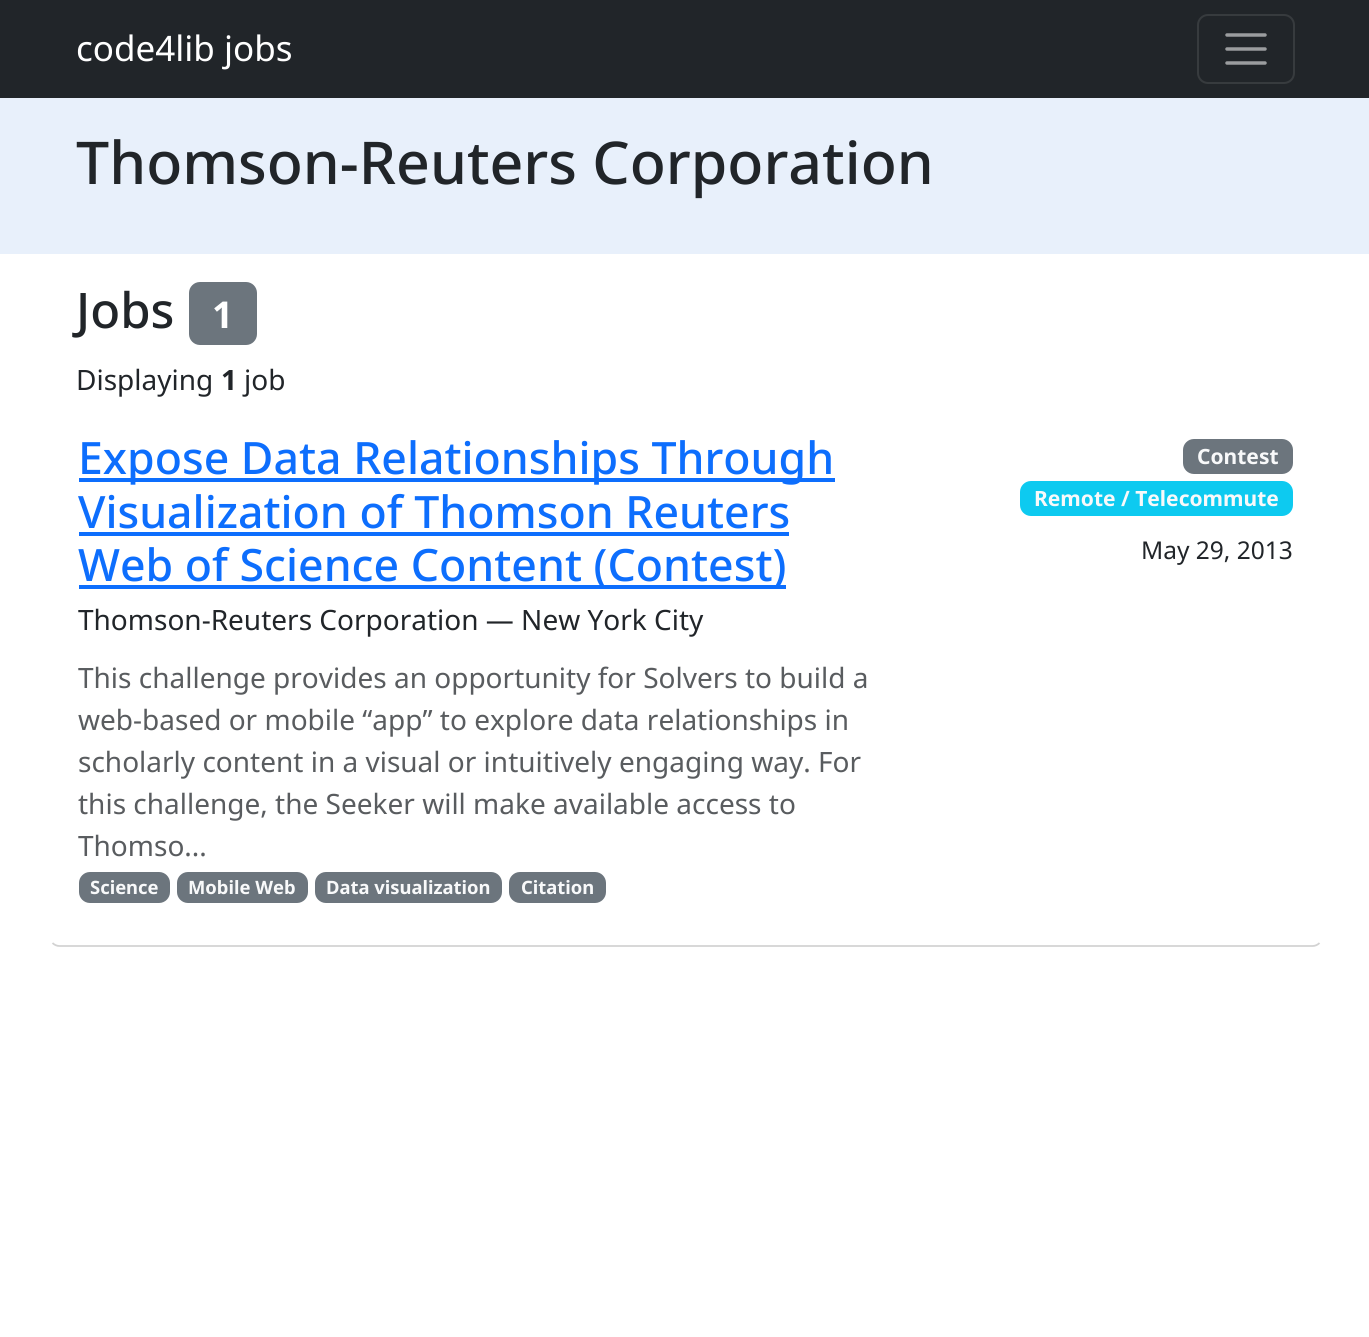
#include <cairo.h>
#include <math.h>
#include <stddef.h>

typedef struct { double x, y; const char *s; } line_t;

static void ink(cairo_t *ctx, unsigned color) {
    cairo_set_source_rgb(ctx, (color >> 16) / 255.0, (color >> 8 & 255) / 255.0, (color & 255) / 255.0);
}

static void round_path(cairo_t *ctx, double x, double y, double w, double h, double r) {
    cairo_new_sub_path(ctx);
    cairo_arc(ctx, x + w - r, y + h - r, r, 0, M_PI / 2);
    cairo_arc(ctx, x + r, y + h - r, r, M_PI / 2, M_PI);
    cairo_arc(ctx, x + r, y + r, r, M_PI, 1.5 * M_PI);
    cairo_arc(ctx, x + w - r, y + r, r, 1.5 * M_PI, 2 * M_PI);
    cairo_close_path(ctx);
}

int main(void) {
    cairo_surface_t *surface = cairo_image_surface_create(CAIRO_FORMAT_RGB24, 1369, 1337);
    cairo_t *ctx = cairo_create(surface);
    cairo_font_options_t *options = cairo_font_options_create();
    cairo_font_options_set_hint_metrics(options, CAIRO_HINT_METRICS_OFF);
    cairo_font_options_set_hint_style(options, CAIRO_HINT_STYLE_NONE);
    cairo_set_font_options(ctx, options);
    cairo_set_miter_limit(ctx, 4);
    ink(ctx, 0xFFFFFF);
    cairo_paint(ctx);
    ink(ctx, 0x212529);
    cairo_rectangle(ctx, 0, 0, 1369, 98);
    cairo_fill(ctx);
    cairo_select_font_face(ctx, "Noto Sans", CAIRO_FONT_SLANT_NORMAL, CAIRO_FONT_WEIGHT_NORMAL);
    cairo_set_font_size(ctx, 35);
    ink(ctx, 0xFFFFFF);
    cairo_move_to(ctx, 76, 61);
    cairo_show_text(ctx, "code4lib jobs");
    round_path(ctx, 1198, 15, 96, 68, 10);
    ink(ctx, 0x373B3E);
    cairo_stroke(ctx);
    cairo_new_path(ctx);
    cairo_move_to(ctx, 1227, 35);
    cairo_line_to(ctx, 1265, 35);
    cairo_move_to(ctx, 1227, 49);
    cairo_line_to(ctx, 1265, 49);
    cairo_move_to(ctx, 1227, 63);
    cairo_line_to(ctx, 1265, 63);
    ink(ctx, 0x9B9D9F);
    cairo_set_line_width(ctx, 3.5);
    cairo_set_line_cap(ctx, CAIRO_LINE_CAP_ROUND);
    cairo_stroke(ctx);
    ink(ctx, 0xE8F0FB);
    cairo_rectangle(ctx, 0, 98, 1369, 156);
    cairo_fill(ctx);
    cairo_select_font_face(ctx, "Noto Sans Medium", CAIRO_FONT_SLANT_NORMAL, CAIRO_FONT_WEIGHT_NORMAL);
    cairo_set_font_size(ctx, 59);
    ink(ctx, 0x212529);
    cairo_move_to(ctx, 76, 184);
    cairo_show_text(ctx, "Thomson-Reuters Corporation");
    cairo_set_font_size(ctx, 49);
    cairo_move_to(ctx, 76, 328);
    cairo_show_text(ctx, "Jobs");
    ink(ctx, 0x6C757D);
    round_path(ctx, 189, 282, 68, 63, 11);
    cairo_fill(ctx);
    cairo_select_font_face(ctx, "Noto Sans", CAIRO_FONT_SLANT_NORMAL, CAIRO_FONT_WEIGHT_BOLD);
    cairo_set_font_size(ctx, 37);
    ink(ctx, 0xFFFFFF);
    cairo_move_to(ctx, 212, 328);
    cairo_show_text(ctx, "1");
    cairo_select_font_face(ctx, "Noto Sans", CAIRO_FONT_SLANT_NORMAL, CAIRO_FONT_WEIGHT_NORMAL);
    cairo_set_font_size(ctx, 28);
    ink(ctx, 0x212529);
    cairo_move_to(ctx, 76, 390);
    cairo_show_text(ctx, "Displaying");
    cairo_select_font_face(ctx, "Noto Sans", CAIRO_FONT_SLANT_NORMAL, CAIRO_FONT_WEIGHT_BOLD);
    cairo_move_to(ctx, 221, 390);
    cairo_show_text(ctx, "1");
    cairo_select_font_face(ctx, "Noto Sans", CAIRO_FONT_SLANT_NORMAL, CAIRO_FONT_WEIGHT_NORMAL);
    cairo_move_to(ctx, 244, 390);
    cairo_show_text(ctx, "job");
    cairo_new_path(ctx);
    cairo_move_to(ctx, 1319.5, 943);
    cairo_curve_to(ctx, 1317.5, 945, 1315, 946, 1312.5, 946);
    cairo_line_to(ctx, 59.5, 946);
    cairo_curve_to(ctx, 57, 946, 54.5, 945, 52.5, 943);
    ink(ctx, 0xD2D2D2);
    cairo_set_line_width(ctx, 1.8);
    cairo_set_line_cap(ctx, CAIRO_LINE_CAP_BUTT);
    cairo_stroke(ctx);
    ink(ctx, 0x0D6EFD);
    cairo_rectangle(ctx, 79, 478, 756, 4);
    cairo_fill(ctx);
    cairo_select_font_face(ctx, "Noto Sans Medium", CAIRO_FONT_SLANT_NORMAL, CAIRO_FONT_WEIGHT_NORMAL);
    cairo_set_font_size(ctx, 44.6);
    cairo_move_to(ctx, 78, 474);
    cairo_show_text(ctx, "Expose Data Relationships Through");
    cairo_move_to(ctx, 78, 528);
    cairo_show_text(ctx, "Visualization of Thomson Reuters");
    cairo_rectangle(ctx, 79, 532, 710, 4);
    cairo_fill(ctx);
    cairo_rectangle(ctx, 79, 585, 707, 4);
    cairo_fill(ctx);
    cairo_move_to(ctx, 78, 581);
    cairo_show_text(ctx, "Web of Science Content (Contest)");
    cairo_select_font_face(ctx, "Noto Sans", CAIRO_FONT_SLANT_NORMAL, CAIRO_FONT_WEIGHT_NORMAL);
    cairo_set_font_size(ctx, 28);
    ink(ctx, 0x212529);
    cairo_move_to(ctx, 78, 630);
    cairo_show_text(ctx, "Thomson-Reuters Corporation — New York City");
    ink(ctx, 0x6C757D);
    round_path(ctx, 1183, 439, 110, 35, 11);
    cairo_fill(ctx);
    cairo_select_font_face(ctx, "Noto Sans", CAIRO_FONT_SLANT_NORMAL, CAIRO_FONT_WEIGHT_BOLD);
    cairo_set_font_size(ctx, 21);
    ink(ctx, 0xF8F9FA);
    cairo_move_to(ctx, 1197, 464);
    cairo_show_text(ctx, "Contest");
    ink(ctx, 0x0DCAF0);
    round_path(ctx, 1020, 481, 273, 35, 11);
    cairo_fill(ctx);
    ink(ctx, 0xF8F9FA);
    cairo_move_to(ctx, 1034, 506);
    cairo_show_text(ctx, "Remote / Telecommute");
    cairo_select_font_face(ctx, "Noto Sans", CAIRO_FONT_SLANT_NORMAL, CAIRO_FONT_WEIGHT_NORMAL);
    cairo_set_font_size(ctx, 24.5);
    ink(ctx, 0x212529);
    cairo_move_to(ctx, 1141, 559);
    cairo_show_text(ctx, "May 29, 2013");
    cairo_set_font_size(ctx, 28);
    ink(ctx, 0x595C5F);
    {
        static const line_t items[] = {
            {78, 688, "This challenge provides an opportunity for Solvers to build a"},
            {78, 730, "web-based or mobile “app” to explore data relationships in"},
            {78, 772, "scholarly content in a visual or intuitively engaging way. For"},
            {78, 814, "this challenge, the Seeker will make available access to"},
            {78, 856, "Thomso..."},
        };
        for (size_t i = 0; i < sizeof items / sizeof *items; i++) {
            cairo_move_to(ctx, items[i].x, items[i].y);
            cairo_show_text(ctx, items[i].s);
        }
    }
    ink(ctx, 0x6C757D);
    round_path(ctx, 79, 872, 91, 31, 11);
    cairo_fill(ctx);
    cairo_select_font_face(ctx, "Noto Sans", CAIRO_FONT_SLANT_NORMAL, CAIRO_FONT_WEIGHT_BOLD);
    cairo_set_font_size(ctx, 18.4);
    ink(ctx, 0xF8F9FA);
    cairo_move_to(ctx, 90, 894);
    cairo_show_text(ctx, "Science");
    ink(ctx, 0x6C757D);
    round_path(ctx, 177, 872, 131, 31, 11);
    cairo_fill(ctx);
    ink(ctx, 0xF8F9FA);
    cairo_move_to(ctx, 188, 894);
    cairo_show_text(ctx, "Mobile Web");
    ink(ctx, 0x6C757D);
    round_path(ctx, 315, 872, 187, 31, 11);
    cairo_fill(ctx);
    ink(ctx, 0xF8F9FA);
    cairo_move_to(ctx, 326, 894);
    cairo_show_text(ctx, "Data visualization");
    ink(ctx, 0x6C757D);
    round_path(ctx, 509, 872, 97, 31, 11);
    cairo_fill(ctx);
    ink(ctx, 0xF8F9FA);
    cairo_move_to(ctx, 521, 894);
    cairo_show_text(ctx, "Citation");
    cairo_surface_write_to_png(surface, "image.png");
    cairo_font_options_destroy(options);
    cairo_destroy(ctx);
    cairo_surface_destroy(surface);
    return 0;
}
